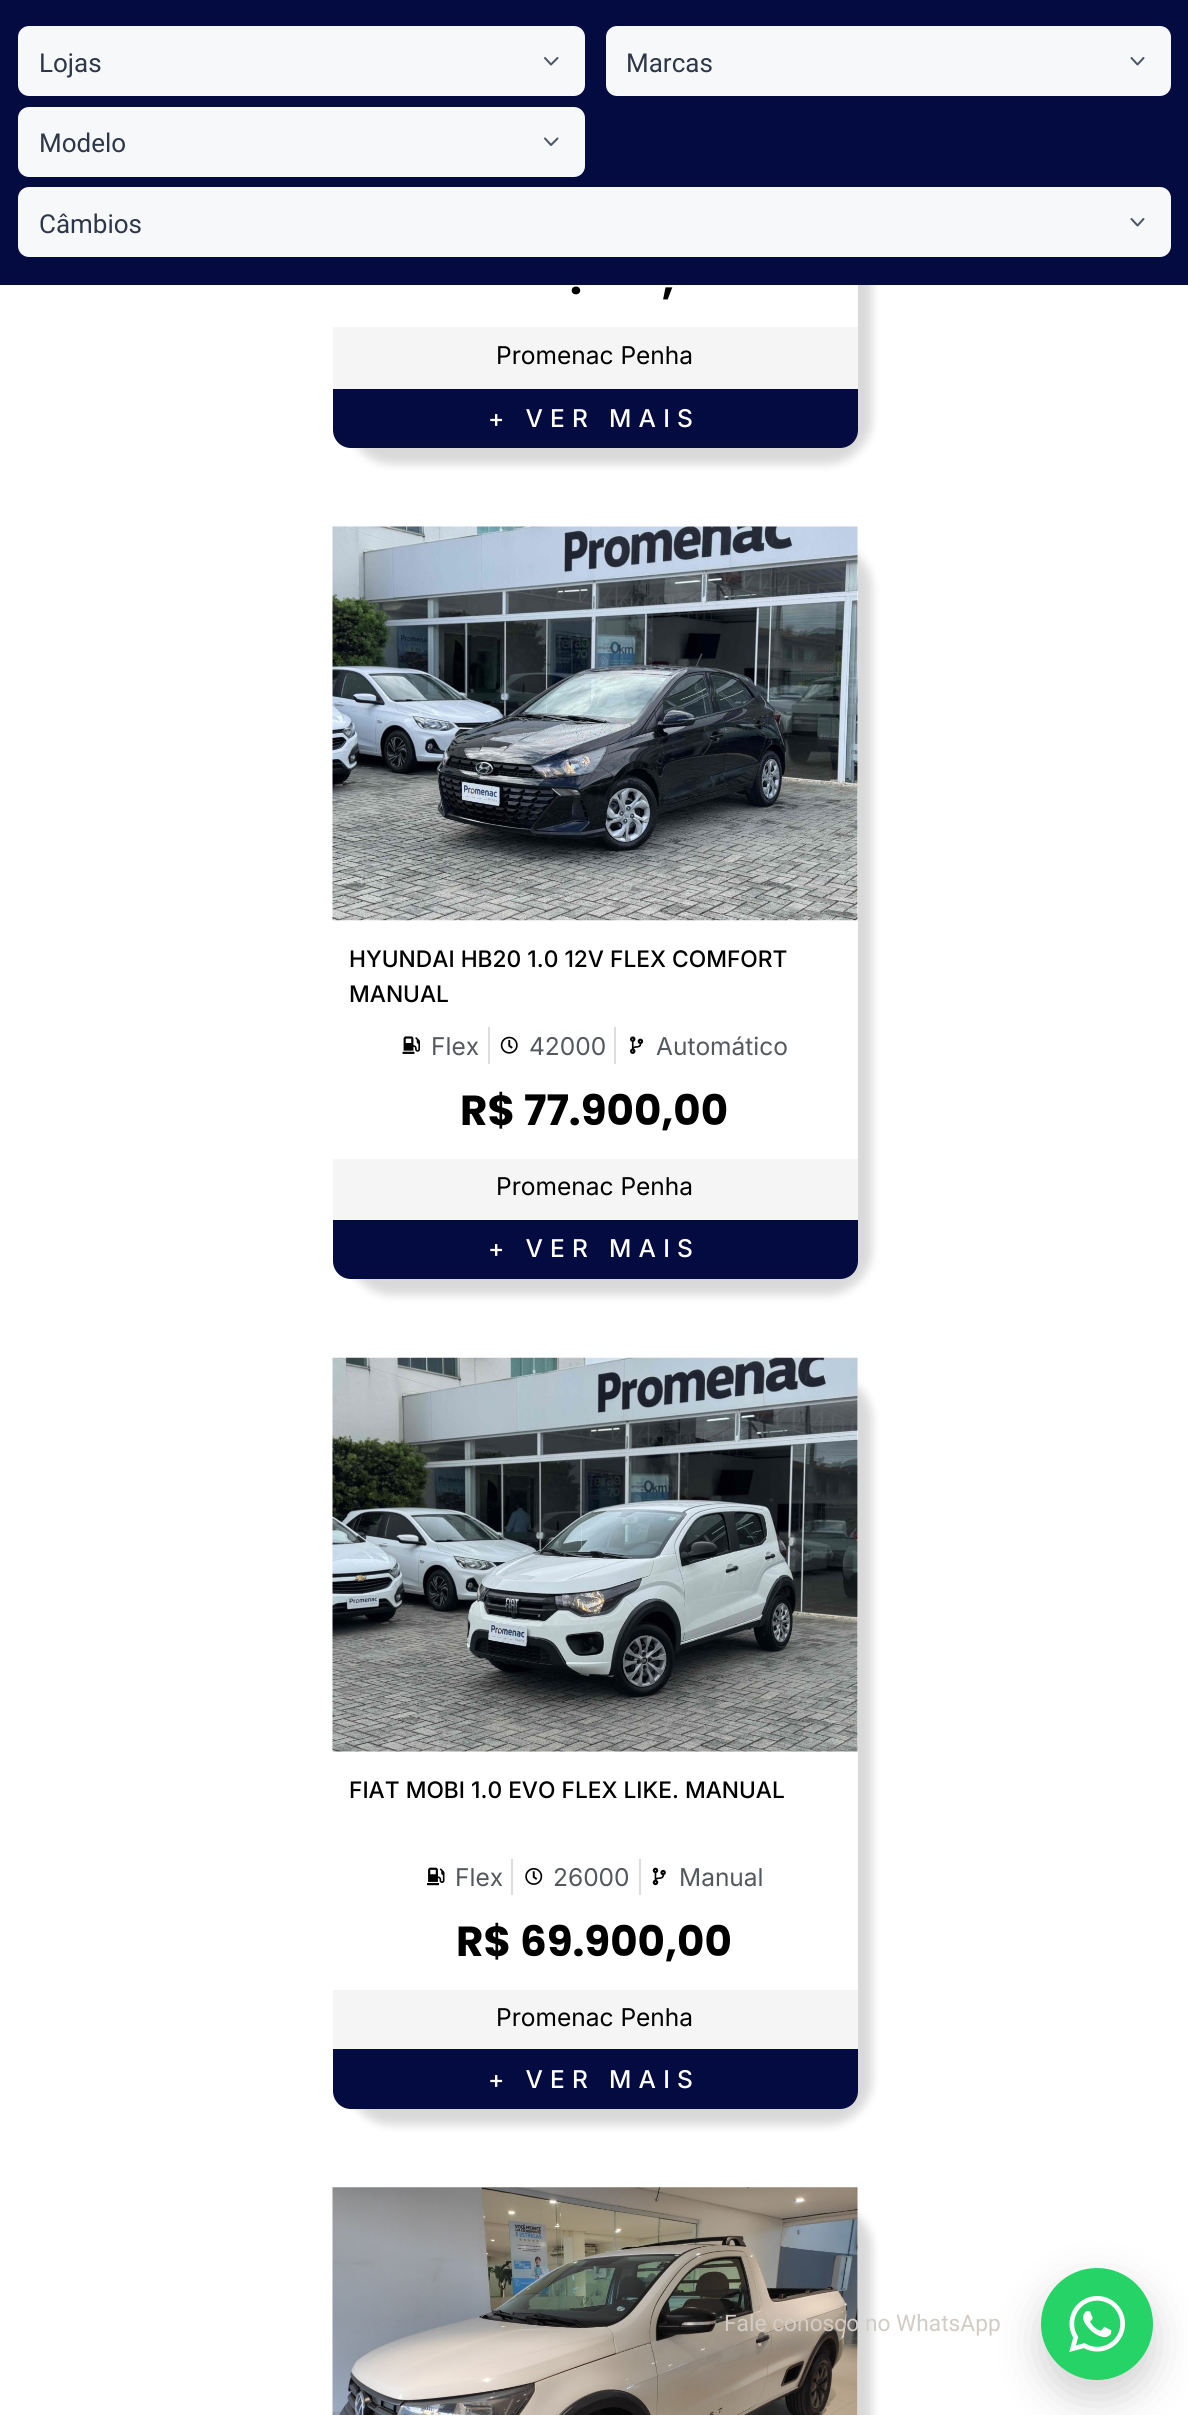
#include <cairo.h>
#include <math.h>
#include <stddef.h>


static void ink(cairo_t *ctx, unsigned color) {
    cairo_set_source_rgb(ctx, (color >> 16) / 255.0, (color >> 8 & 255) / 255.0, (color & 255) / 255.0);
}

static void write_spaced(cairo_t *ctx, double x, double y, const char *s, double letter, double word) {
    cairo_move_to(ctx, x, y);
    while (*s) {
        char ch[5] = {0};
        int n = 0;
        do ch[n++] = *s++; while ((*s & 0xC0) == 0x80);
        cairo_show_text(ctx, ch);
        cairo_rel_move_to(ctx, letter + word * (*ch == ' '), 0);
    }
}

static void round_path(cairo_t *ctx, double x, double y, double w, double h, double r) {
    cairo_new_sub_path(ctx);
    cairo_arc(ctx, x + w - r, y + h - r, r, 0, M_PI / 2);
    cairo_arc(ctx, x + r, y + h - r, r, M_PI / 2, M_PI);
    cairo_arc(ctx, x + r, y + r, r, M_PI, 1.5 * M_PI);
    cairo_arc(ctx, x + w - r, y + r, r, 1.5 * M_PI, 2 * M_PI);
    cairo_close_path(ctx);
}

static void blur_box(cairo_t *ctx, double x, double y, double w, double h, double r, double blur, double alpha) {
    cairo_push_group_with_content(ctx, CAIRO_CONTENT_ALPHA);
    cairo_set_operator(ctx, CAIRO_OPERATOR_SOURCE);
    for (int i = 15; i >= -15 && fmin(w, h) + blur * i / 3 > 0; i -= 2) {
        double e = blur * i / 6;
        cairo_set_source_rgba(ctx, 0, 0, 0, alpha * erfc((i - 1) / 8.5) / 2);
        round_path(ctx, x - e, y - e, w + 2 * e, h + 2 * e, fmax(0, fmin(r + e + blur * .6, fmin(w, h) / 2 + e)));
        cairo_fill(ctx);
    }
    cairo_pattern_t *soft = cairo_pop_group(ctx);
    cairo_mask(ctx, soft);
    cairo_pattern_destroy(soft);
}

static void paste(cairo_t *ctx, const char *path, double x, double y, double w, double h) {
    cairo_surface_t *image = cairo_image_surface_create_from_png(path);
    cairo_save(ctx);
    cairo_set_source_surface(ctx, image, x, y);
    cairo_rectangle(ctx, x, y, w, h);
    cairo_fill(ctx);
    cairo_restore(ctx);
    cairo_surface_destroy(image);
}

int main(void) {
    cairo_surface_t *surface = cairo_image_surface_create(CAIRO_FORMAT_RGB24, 1188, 2415);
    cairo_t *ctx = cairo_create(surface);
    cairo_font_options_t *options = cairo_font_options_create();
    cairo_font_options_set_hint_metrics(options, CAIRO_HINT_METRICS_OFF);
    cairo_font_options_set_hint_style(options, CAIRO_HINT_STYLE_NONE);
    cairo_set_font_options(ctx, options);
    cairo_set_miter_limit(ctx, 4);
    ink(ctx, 0xFFFFFF);
    cairo_paint(ctx);
    ink(ctx, 0x000000);
    blur_box(ctx, 347, -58, 525, 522, 44, 4.5, 0.15);
    ink(ctx, 0xFFFFFF);
    round_path(ctx, 333, -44, 525, 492, 44);
    cairo_fill(ctx);
    ink(ctx, 0x030B40);
    cairo_rectangle(ctx, 0, 0, 1188, 285);
    cairo_fill(ctx);
    ink(ctx, 0xF7F8FA);
    round_path(ctx, 18, 26, 567, 70, 11);
    cairo_fill(ctx);
    cairo_new_path(ctx);
    cairo_move_to(ctx, 545, 58);
    cairo_line_to(ctx, 551, 64.5);
    cairo_line_to(ctx, 557.5, 58);
    ink(ctx, 0x4A5568);
    cairo_set_line_cap(ctx, CAIRO_LINE_CAP_ROUND);
    cairo_set_line_join(ctx, CAIRO_LINE_JOIN_ROUND);
    cairo_stroke(ctx);
    cairo_select_font_face(ctx, "Roboto", CAIRO_FONT_SLANT_NORMAL, CAIRO_FONT_WEIGHT_NORMAL);
    cairo_set_font_size(ctx, 26);
    ink(ctx, 0x2D3748);
    cairo_move_to(ctx, 39, 72);
    cairo_show_text(ctx, "Lojas");
    ink(ctx, 0xF7F8FA);
    round_path(ctx, 606, 26, 565, 70, 11);
    cairo_fill(ctx);
    cairo_new_path(ctx);
    cairo_move_to(ctx, 1131.5, 58);
    cairo_line_to(ctx, 1137.5, 64.5);
    cairo_line_to(ctx, 1143.5, 58);
    ink(ctx, 0x4A5568);
    cairo_stroke(ctx);
    ink(ctx, 0x2D3748);
    cairo_move_to(ctx, 626, 72);
    cairo_show_text(ctx, "Marcas");
    ink(ctx, 0xF7F8FA);
    round_path(ctx, 18, 107, 567, 70, 11);
    cairo_fill(ctx);
    cairo_new_path(ctx);
    cairo_move_to(ctx, 545, 138.5);
    cairo_line_to(ctx, 551, 145);
    cairo_line_to(ctx, 557.5, 138.5);
    ink(ctx, 0x4A5568);
    cairo_stroke(ctx);
    ink(ctx, 0x2D3748);
    cairo_move_to(ctx, 39, 152);
    cairo_show_text(ctx, "Modelo");
    ink(ctx, 0xF7F8FA);
    round_path(ctx, 18, 187, 1153, 70, 11);
    cairo_fill(ctx);
    cairo_new_path(ctx);
    cairo_move_to(ctx, 1131.5, 219);
    cairo_line_to(ctx, 1137.5, 225.5);
    cairo_line_to(ctx, 1143.5, 219);
    ink(ctx, 0x4A5568);
    cairo_stroke(ctx);
    ink(ctx, 0x2D3748);
    cairo_move_to(ctx, 39, 233);
    cairo_show_text(ctx, "Câmbios");
    cairo_select_font_face(ctx, "Poppins", CAIRO_FONT_SLANT_NORMAL, CAIRO_FONT_WEIGHT_BOLD);
    cairo_set_font_size(ctx, 42);
    ink(ctx, 0x000000);
    cairo_move_to(ctx, 570, 294);
    cairo_show_text(ctx, ".");
    cairo_move_to(ctx, 662, 294);
    cairo_show_text(ctx, ",");
    ink(ctx, 0xF5F5F5);
    cairo_rectangle(ctx, 333, 327, 525, 62);
    cairo_fill(ctx);
    cairo_select_font_face(ctx, "Inter", CAIRO_FONT_SLANT_NORMAL, CAIRO_FONT_WEIGHT_NORMAL);
    cairo_set_font_size(ctx, 24.5);
    ink(ctx, 0x000000);
    cairo_move_to(ctx, 496, 364);
    cairo_show_text(ctx, "Promenac Penha");
    ink(ctx, 0x030B40);
    cairo_new_path(ctx);
    cairo_move_to(ctx, 333, 389);
    cairo_line_to(ctx, 858, 389);
    cairo_line_to(ctx, 858, 430);
    cairo_curve_to(ctx, 858, 440, 850, 448, 840, 448);
    cairo_line_to(ctx, 351, 448);
    cairo_curve_to(ctx, 341, 448, 333, 440, 333, 430);
    cairo_close_path(ctx);
    cairo_fill(ctx);
    cairo_select_font_face(ctx, "Inter Medium", CAIRO_FONT_SLANT_NORMAL, CAIRO_FONT_WEIGHT_NORMAL);
    ink(ctx, 0xFFFFFF);
    write_spaced(ctx, 488, 427, "+ VER MAIS", 7.25, 0);
    ink(ctx, 0x000000);
    blur_box(ctx, 347, 543, 525, 752, 44, 4.5, 0.15);
    ink(ctx, 0xFFFFFF);
    round_path(ctx, 333, 527, 525, 752, 44);
    cairo_fill(ctx);
    paste(ctx, "media/1.png", 332, 526, 526, 395);
    cairo_set_font_size(ctx, 22.75);
    ink(ctx, 0x000000);
    cairo_move_to(ctx, 349, 967);
    cairo_show_text(ctx, "HYUNDAI HB20 1.0 12V FLEX COMFORT");
    cairo_move_to(ctx, 349, 1002);
    cairo_show_text(ctx, "MANUAL");
    paste(ctx, "media/2.png", 402, 1036, 18, 18);
    cairo_select_font_face(ctx, "Inter", CAIRO_FONT_SLANT_NORMAL, CAIRO_FONT_WEIGHT_NORMAL);
    cairo_set_font_size(ctx, 24.5);
    ink(ctx, 0x54595F);
    cairo_move_to(ctx, 431, 1055);
    cairo_show_text(ctx, "Flex");
    ink(ctx, 0xDDDDDD);
    cairo_rectangle(ctx, 488, 1027, 2, 37);
    cairo_fill(ctx);
    paste(ctx, "media/3.png", 500, 1036, 18, 18);
    ink(ctx, 0x54595F);
    cairo_move_to(ctx, 529, 1055);
    cairo_show_text(ctx, "42000");
    ink(ctx, 0xDDDDDD);
    cairo_rectangle(ctx, 614, 1027, 2, 37);
    cairo_fill(ctx);
    paste(ctx, "media/4.png", 630, 1036, 14, 18);
    ink(ctx, 0x54595F);
    cairo_move_to(ctx, 656, 1055);
    cairo_show_text(ctx, "Automático");
    cairo_select_font_face(ctx, "Poppins", CAIRO_FONT_SLANT_NORMAL, CAIRO_FONT_WEIGHT_BOLD);
    cairo_set_font_size(ctx, 42);
    ink(ctx, 0x000000);
    cairo_move_to(ctx, 460, 1125);
    cairo_show_text(ctx, "R$ 77.900,00");
    ink(ctx, 0xF5F5F5);
    cairo_rectangle(ctx, 333, 1159, 525, 61);
    cairo_fill(ctx);
    cairo_select_font_face(ctx, "Inter", CAIRO_FONT_SLANT_NORMAL, CAIRO_FONT_WEIGHT_NORMAL);
    cairo_set_font_size(ctx, 24.5);
    ink(ctx, 0x000000);
    cairo_move_to(ctx, 496, 1195);
    cairo_show_text(ctx, "Promenac Penha");
    ink(ctx, 0x030B40);
    cairo_new_path(ctx);
    cairo_move_to(ctx, 333, 1220);
    cairo_line_to(ctx, 858, 1220);
    cairo_line_to(ctx, 858, 1261);
    cairo_curve_to(ctx, 858, 1271, 850, 1279, 840, 1279);
    cairo_line_to(ctx, 351, 1279);
    cairo_curve_to(ctx, 341, 1279, 333, 1271, 333, 1261);
    cairo_close_path(ctx);
    cairo_fill(ctx);
    cairo_select_font_face(ctx, "Inter Medium", CAIRO_FONT_SLANT_NORMAL, CAIRO_FONT_WEIGHT_NORMAL);
    ink(ctx, 0xFFFFFF);
    write_spaced(ctx, 488, 1257, "+ VER MAIS", 7.25, 0);
    ink(ctx, 0x000000);
    blur_box(ctx, 347, 1374, 525, 751, 44, 4.5, 0.15);
    ink(ctx, 0xFFFFFF);
    round_path(ctx, 333, 1358, 525, 751, 44);
    cairo_fill(ctx);
    paste(ctx, "media/5.png", 332, 1357, 526, 395);
    cairo_set_font_size(ctx, 22.75);
    ink(ctx, 0x000000);
    cairo_move_to(ctx, 349, 1798);
    cairo_show_text(ctx, "FIAT MOBI 1.0 EVO FLEX LIKE. MANUAL");
    paste(ctx, "media/6.png", 427, 1867, 18, 19);
    cairo_select_font_face(ctx, "Inter", CAIRO_FONT_SLANT_NORMAL, CAIRO_FONT_WEIGHT_NORMAL);
    cairo_set_font_size(ctx, 24.5);
    ink(ctx, 0x54595F);
    cairo_move_to(ctx, 455, 1886);
    cairo_show_text(ctx, "Flex");
    ink(ctx, 0xDDDDDD);
    cairo_rectangle(ctx, 511, 1859, 2, 36);
    cairo_fill(ctx);
    paste(ctx, "media/7.png", 525, 1868, 18, 17);
    ink(ctx, 0x54595F);
    cairo_move_to(ctx, 553, 1886);
    cairo_show_text(ctx, "26000");
    ink(ctx, 0xDDDDDD);
    cairo_rectangle(ctx, 639, 1859, 2, 36);
    cairo_fill(ctx);
    paste(ctx, "media/8.png", 652, 1867, 14, 19);
    ink(ctx, 0x54595F);
    cairo_move_to(ctx, 679, 1886);
    cairo_show_text(ctx, "Manual");
    cairo_select_font_face(ctx, "Poppins", CAIRO_FONT_SLANT_NORMAL, CAIRO_FONT_WEIGHT_BOLD);
    cairo_set_font_size(ctx, 42);
    ink(ctx, 0x000000);
    cairo_move_to(ctx, 456, 1956);
    cairo_show_text(ctx, "R$ 69.900,00");
    ink(ctx, 0xF5F5F5);
    cairo_rectangle(ctx, 333, 1990, 525, 59);
    cairo_fill(ctx);
    cairo_select_font_face(ctx, "Inter", CAIRO_FONT_SLANT_NORMAL, CAIRO_FONT_WEIGHT_NORMAL);
    cairo_set_font_size(ctx, 24.5);
    ink(ctx, 0x000000);
    cairo_move_to(ctx, 496, 2026);
    cairo_show_text(ctx, "Promenac Penha");
    ink(ctx, 0x030B40);
    cairo_new_path(ctx);
    cairo_move_to(ctx, 333, 2049);
    cairo_line_to(ctx, 858, 2049);
    cairo_line_to(ctx, 858, 2091);
    cairo_curve_to(ctx, 858, 2101, 850, 2109, 840, 2109);
    cairo_line_to(ctx, 351, 2109);
    cairo_curve_to(ctx, 341, 2109, 333, 2101, 333, 2091);
    cairo_close_path(ctx);
    cairo_fill(ctx);
    cairo_select_font_face(ctx, "Inter Medium", CAIRO_FONT_SLANT_NORMAL, CAIRO_FONT_WEIGHT_NORMAL);
    ink(ctx, 0xFFFFFF);
    write_spaced(ctx, 488, 2088, "+ VER MAIS", 7.25, 0);
    ink(ctx, 0x000000);
    blur_box(ctx, 347, 2203, 525, 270, 44, 4.5, 0.15);
    ink(ctx, 0xFFFFFF);
    round_path(ctx, 333, 2188, 525, 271, 44);
    cairo_fill(ctx);
    paste(ctx, "media/9.png", 332, 2187, 526, 228);
    ink(ctx, 0x000000);
    blur_box(ctx, 1041, 2286, 112, 112, 56, 21, 0.18);
    ink(ctx, 0x25D366);
    cairo_arc(ctx, 1097, 2324, 56, 0, 2 * M_PI);
    cairo_fill(ctx);
    cairo_select_font_face(ctx, "Roboto", CAIRO_FONT_SLANT_NORMAL, CAIRO_FONT_WEIGHT_NORMAL);
    cairo_set_font_size(ctx, 22.75);
    ink(ctx, 0xD2CCC5);
    cairo_move_to(ctx, 724, 2331);
    cairo_show_text(ctx, "Fale conosco no WhatsApp");
    paste(ctx, "media/10.png", 1069, 2296, 56, 56);
    cairo_surface_write_to_png(surface, "image.png");
    cairo_font_options_destroy(options);
    cairo_destroy(ctx);
    cairo_surface_destroy(surface);
    return 0;
}
